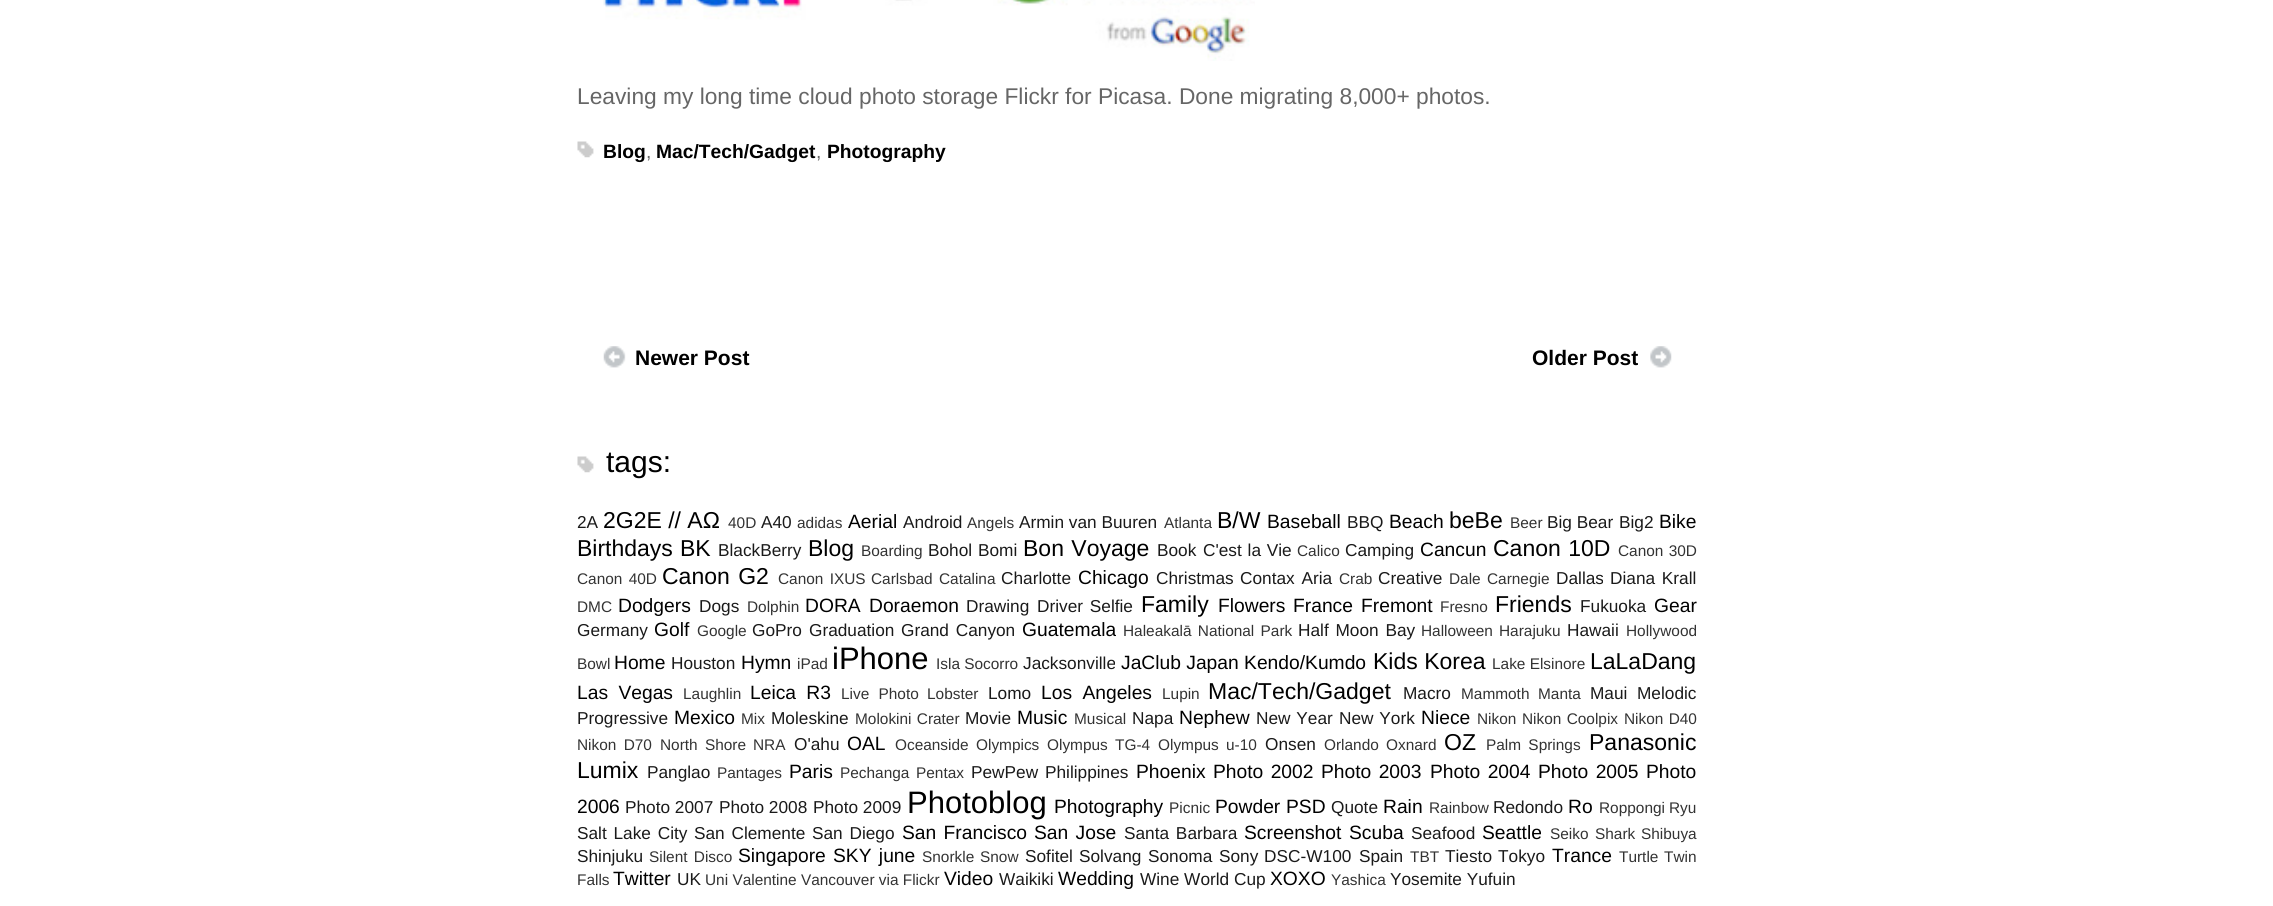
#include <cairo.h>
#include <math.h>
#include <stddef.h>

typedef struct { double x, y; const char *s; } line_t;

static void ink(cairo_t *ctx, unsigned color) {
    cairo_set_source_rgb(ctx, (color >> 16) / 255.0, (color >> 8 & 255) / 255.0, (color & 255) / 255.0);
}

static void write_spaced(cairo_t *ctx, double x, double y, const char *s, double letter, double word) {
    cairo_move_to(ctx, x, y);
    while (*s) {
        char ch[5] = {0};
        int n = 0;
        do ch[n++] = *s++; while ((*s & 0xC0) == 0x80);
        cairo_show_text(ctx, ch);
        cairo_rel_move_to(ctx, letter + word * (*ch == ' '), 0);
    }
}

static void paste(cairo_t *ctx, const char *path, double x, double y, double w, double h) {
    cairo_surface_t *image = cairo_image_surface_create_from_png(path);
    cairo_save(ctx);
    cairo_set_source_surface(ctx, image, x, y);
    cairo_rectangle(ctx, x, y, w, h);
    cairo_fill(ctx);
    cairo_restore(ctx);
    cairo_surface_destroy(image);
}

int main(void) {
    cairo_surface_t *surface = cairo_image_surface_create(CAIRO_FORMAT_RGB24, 2273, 906);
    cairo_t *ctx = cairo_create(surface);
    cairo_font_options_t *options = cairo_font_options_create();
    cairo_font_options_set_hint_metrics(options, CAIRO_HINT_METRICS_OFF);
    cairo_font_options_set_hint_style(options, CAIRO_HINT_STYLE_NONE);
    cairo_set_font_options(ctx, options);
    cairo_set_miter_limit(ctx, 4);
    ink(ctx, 0xFFFFFF);
    cairo_paint(ctx);
    paste(ctx, "media/1.png", 603, 0, 652, 61);
    cairo_select_font_face(ctx, "Liberation Sans", CAIRO_FONT_SLANT_NORMAL, CAIRO_FONT_WEIGHT_NORMAL);
    cairo_set_font_size(ctx, 22.75);
    ink(ctx, 0x666666);
    cairo_move_to(ctx, 577, 104);
    cairo_show_text(ctx, "Leaving my long time cloud photo storage Flickr for Picasa. Done migrating 8,000+ photos.");
    paste(ctx, "media/2.png", 577, 141, 17, 17);
    cairo_select_font_face(ctx, "Liberation Sans", CAIRO_FONT_SLANT_NORMAL, CAIRO_FONT_WEIGHT_BOLD);
    cairo_set_font_size(ctx, 19.25);
    ink(ctx, 0x000000);
    cairo_move_to(ctx, 603, 158);
    cairo_show_text(ctx, "Blog");
    cairo_select_font_face(ctx, "Liberation Sans", CAIRO_FONT_SLANT_NORMAL, CAIRO_FONT_WEIGHT_NORMAL);
    ink(ctx, 0x666666);
    cairo_move_to(ctx, 646, 158);
    cairo_show_text(ctx, ",");
    cairo_select_font_face(ctx, "Liberation Sans", CAIRO_FONT_SLANT_NORMAL, CAIRO_FONT_WEIGHT_BOLD);
    ink(ctx, 0x000000);
    cairo_move_to(ctx, 656, 158);
    cairo_show_text(ctx, "Mac/Tech/Gadget");
    cairo_select_font_face(ctx, "Liberation Sans", CAIRO_FONT_SLANT_NORMAL, CAIRO_FONT_WEIGHT_NORMAL);
    ink(ctx, 0x666666);
    cairo_move_to(ctx, 816, 158);
    cairo_show_text(ctx, ",");
    cairo_select_font_face(ctx, "Liberation Sans", CAIRO_FONT_SLANT_NORMAL, CAIRO_FONT_WEIGHT_BOLD);
    ink(ctx, 0x000000);
    cairo_move_to(ctx, 827, 158);
    cairo_show_text(ctx, "Photography");
    paste(ctx, "media/3.png", 603, 346, 23, 22);
    cairo_set_font_size(ctx, 21);
    cairo_move_to(ctx, 635, 365);
    cairo_show_text(ctx, "Newer Post");
    cairo_move_to(ctx, 1532, 365);
    cairo_show_text(ctx, "Older Post");
    paste(ctx, "media/4.png", 1650, 346, 22, 22);
    paste(ctx, "media/2.png", 577, 456, 17, 17);
    cairo_select_font_face(ctx, "Liberation Sans", CAIRO_FONT_SLANT_NORMAL, CAIRO_FONT_WEIGHT_NORMAL);
    cairo_set_font_size(ctx, 30);
    cairo_move_to(ctx, 606, 472);
    cairo_show_text(ctx, "tags:");
    cairo_set_font_size(ctx, 17.25);
    ink(ctx, 0x1A1A1A);
    cairo_move_to(ctx, 577, 528);
    cairo_show_text(ctx, "2A");
    cairo_set_font_size(ctx, 23);
    ink(ctx, 0x000000);
    cairo_move_to(ctx, 603, 528);
    cairo_show_text(ctx, "2G2E // ΑΩ");
    cairo_set_font_size(ctx, 15.4);
    ink(ctx, 0x333333);
    cairo_move_to(ctx, 728, 528);
    cairo_show_text(ctx, "40D");
    cairo_set_font_size(ctx, 17.25);
    ink(ctx, 0x1A1A1A);
    cairo_move_to(ctx, 761, 528);
    cairo_show_text(ctx, "A40");
    cairo_set_font_size(ctx, 15.4);
    ink(ctx, 0x333333);
    cairo_move_to(ctx, 797, 528);
    cairo_show_text(ctx, "adidas");
    cairo_set_font_size(ctx, 19.25);
    ink(ctx, 0x000000);
    cairo_move_to(ctx, 848, 528);
    cairo_show_text(ctx, "Aerial");
    cairo_set_font_size(ctx, 17.25);
    ink(ctx, 0x1A1A1A);
    cairo_move_to(ctx, 903, 528);
    cairo_show_text(ctx, "Android");
    cairo_set_font_size(ctx, 15.4);
    ink(ctx, 0x333333);
    cairo_move_to(ctx, 967, 528);
    cairo_show_text(ctx, "Angels");
    cairo_set_font_size(ctx, 17.25);
    ink(ctx, 0x1A1A1A);
    cairo_move_to(ctx, 1019, 528);
    cairo_show_text(ctx, "Armin van Buuren");
    cairo_set_font_size(ctx, 15.4);
    ink(ctx, 0x333333);
    cairo_move_to(ctx, 1164, 528);
    cairo_show_text(ctx, "Atlanta");
    cairo_set_font_size(ctx, 23);
    ink(ctx, 0x000000);
    cairo_move_to(ctx, 1217, 528);
    cairo_show_text(ctx, "B/W");
    cairo_set_font_size(ctx, 19.25);
    cairo_move_to(ctx, 1267, 528);
    cairo_show_text(ctx, "Baseball");
    cairo_set_font_size(ctx, 17.25);
    ink(ctx, 0x1A1A1A);
    cairo_move_to(ctx, 1347, 528);
    cairo_show_text(ctx, "BBQ");
    cairo_set_font_size(ctx, 19.25);
    ink(ctx, 0x000000);
    cairo_move_to(ctx, 1389, 528);
    cairo_show_text(ctx, "Beach");
    cairo_set_font_size(ctx, 23);
    cairo_move_to(ctx, 1449, 528);
    cairo_show_text(ctx, "beBe");
    cairo_set_font_size(ctx, 15.4);
    ink(ctx, 0x333333);
    cairo_move_to(ctx, 1510, 528);
    cairo_show_text(ctx, "Beer");
    cairo_set_font_size(ctx, 17.25);
    ink(ctx, 0x1A1A1A);
    cairo_move_to(ctx, 1547, 528);
    cairo_show_text(ctx, "Big Bear");
    cairo_move_to(ctx, 1619, 528);
    cairo_show_text(ctx, "Big2");
    cairo_set_font_size(ctx, 19.25);
    ink(ctx, 0x000000);
    cairo_move_to(ctx, 1659, 528);
    cairo_show_text(ctx, "Bike");
    cairo_set_font_size(ctx, 23);
    cairo_move_to(ctx, 577, 556);
    cairo_show_text(ctx, "Birthdays");
    cairo_move_to(ctx, 680, 556);
    cairo_show_text(ctx, "BK");
    cairo_set_font_size(ctx, 17.25);
    ink(ctx, 0x1A1A1A);
    cairo_move_to(ctx, 718, 556);
    cairo_show_text(ctx, "BlackBerry");
    cairo_set_font_size(ctx, 23);
    ink(ctx, 0x000000);
    cairo_move_to(ctx, 808, 556);
    cairo_show_text(ctx, "Blog");
    cairo_set_font_size(ctx, 15.4);
    ink(ctx, 0x333333);
    cairo_move_to(ctx, 861, 556);
    cairo_show_text(ctx, "Boarding");
    cairo_set_font_size(ctx, 17.25);
    ink(ctx, 0x1A1A1A);
    cairo_move_to(ctx, 928, 556);
    cairo_show_text(ctx, "Bohol");
    cairo_move_to(ctx, 978, 556);
    cairo_show_text(ctx, "Bomi");
    cairo_set_font_size(ctx, 23);
    ink(ctx, 0x000000);
    write_spaced(ctx, 1023, 556, "Bon Voyage", 0, 1);
    cairo_set_font_size(ctx, 17.25);
    ink(ctx, 0x1A1A1A);
    cairo_move_to(ctx, 1157, 556);
    cairo_show_text(ctx, "Book");
    write_spaced(ctx, 1203, 556, "C'est la Vie", 0, 1);
    cairo_set_font_size(ctx, 15.4);
    ink(ctx, 0x333333);
    cairo_move_to(ctx, 1297, 556);
    cairo_show_text(ctx, "Calico");
    cairo_set_font_size(ctx, 17.25);
    ink(ctx, 0x1A1A1A);
    cairo_move_to(ctx, 1345, 556);
    cairo_show_text(ctx, "Camping");
    cairo_set_font_size(ctx, 19.25);
    ink(ctx, 0x000000);
    cairo_move_to(ctx, 1420, 556);
    cairo_show_text(ctx, "Cancun");
    cairo_set_font_size(ctx, 23);
    write_spaced(ctx, 1493, 556, "Canon 10D", 0, 1);
    cairo_set_font_size(ctx, 15.4);
    ink(ctx, 0x333333);
    write_spaced(ctx, 1618, 556, "Canon 30D", 0, 1);
    write_spaced(ctx, 577, 584, "Canon 40D", 0, 2);
    cairo_set_font_size(ctx, 23);
    ink(ctx, 0x000000);
    write_spaced(ctx, 662, 584, "Canon G2", 0, 2);
    cairo_set_font_size(ctx, 15.4);
    ink(ctx, 0x333333);
    write_spaced(ctx, 778, 584, "Canon IXUS", 0, 2);
    cairo_move_to(ctx, 871, 584);
    cairo_show_text(ctx, "Carlsbad");
    cairo_move_to(ctx, 939, 584);
    cairo_show_text(ctx, "Catalina");
    cairo_set_font_size(ctx, 17.25);
    ink(ctx, 0x1A1A1A);
    cairo_move_to(ctx, 1001, 584);
    cairo_show_text(ctx, "Charlotte");
    cairo_set_font_size(ctx, 19.25);
    ink(ctx, 0x000000);
    cairo_move_to(ctx, 1078, 584);
    cairo_show_text(ctx, "Chicago");
    cairo_set_font_size(ctx, 17.25);
    ink(ctx, 0x1A1A1A);
    cairo_move_to(ctx, 1156, 584);
    cairo_show_text(ctx, "Christmas");
    write_spaced(ctx, 1240, 584, "Contax Aria", 0, 2);
    cairo_set_font_size(ctx, 15.4);
    ink(ctx, 0x333333);
    cairo_move_to(ctx, 1339, 584);
    cairo_show_text(ctx, "Crab");
    cairo_set_font_size(ctx, 17.25);
    ink(ctx, 0x1A1A1A);
    cairo_move_to(ctx, 1378, 584);
    cairo_show_text(ctx, "Creative");
    cairo_set_font_size(ctx, 15.4);
    ink(ctx, 0x333333);
    write_spaced(ctx, 1449, 584, "Dale Carnegie", 0, 2);
    cairo_set_font_size(ctx, 17.25);
    ink(ctx, 0x1A1A1A);
    cairo_move_to(ctx, 1556, 584);
    cairo_show_text(ctx, "Dallas");
    write_spaced(ctx, 1610, 584, "Diana Krall", 0, 2);
    cairo_set_font_size(ctx, 15.4);
    ink(ctx, 0x333333);
    cairo_move_to(ctx, 577, 612);
    cairo_show_text(ctx, "DMC");
    cairo_set_font_size(ctx, 19.25);
    ink(ctx, 0x000000);
    cairo_move_to(ctx, 618, 612);
    cairo_show_text(ctx, "Dodgers");
    cairo_set_font_size(ctx, 17.25);
    ink(ctx, 0x1A1A1A);
    cairo_move_to(ctx, 699, 612);
    cairo_show_text(ctx, "Dogs");
    cairo_set_font_size(ctx, 15.4);
    ink(ctx, 0x333333);
    cairo_move_to(ctx, 747, 612);
    cairo_show_text(ctx, "Dolphin");
    cairo_set_font_size(ctx, 19.25);
    ink(ctx, 0x000000);
    cairo_move_to(ctx, 805, 612);
    cairo_show_text(ctx, "DORA");
    cairo_move_to(ctx, 869, 612);
    cairo_show_text(ctx, "Doraemon");
    cairo_set_font_size(ctx, 17.25);
    ink(ctx, 0x1A1A1A);
    cairo_move_to(ctx, 966, 612);
    cairo_show_text(ctx, "Drawing");
    write_spaced(ctx, 1037, 612, "Driver Selfie", 0, 2);
    cairo_set_font_size(ctx, 23);
    ink(ctx, 0x000000);
    cairo_move_to(ctx, 1141, 612);
    cairo_show_text(ctx, "Family");
    cairo_set_font_size(ctx, 19.25);
    {
        static const line_t items[] = {
            {1218, 612, "Flowers"},
            {1293, 612, "France"},
            {1361, 612, "Fremont"},
        };
        for (size_t i = 0; i < sizeof items / sizeof *items; i++) {
            cairo_move_to(ctx, items[i].x, items[i].y);
            cairo_show_text(ctx, items[i].s);
        }
    }
    cairo_set_font_size(ctx, 15.4);
    ink(ctx, 0x333333);
    cairo_move_to(ctx, 1440, 612);
    cairo_show_text(ctx, "Fresno");
    cairo_set_font_size(ctx, 23);
    ink(ctx, 0x000000);
    cairo_move_to(ctx, 1495, 612);
    cairo_show_text(ctx, "Friends");
    cairo_set_font_size(ctx, 17.25);
    ink(ctx, 0x1A1A1A);
    cairo_move_to(ctx, 1580, 612);
    cairo_show_text(ctx, "Fukuoka");
    cairo_set_font_size(ctx, 19.25);
    ink(ctx, 0x000000);
    cairo_move_to(ctx, 1654, 612);
    cairo_show_text(ctx, "Gear");
    cairo_set_font_size(ctx, 17.25);
    ink(ctx, 0x1A1A1A);
    cairo_move_to(ctx, 577, 636);
    cairo_show_text(ctx, "Germany");
    cairo_set_font_size(ctx, 19.25);
    ink(ctx, 0x000000);
    cairo_move_to(ctx, 654, 636);
    cairo_show_text(ctx, "Golf");
    cairo_set_font_size(ctx, 15.4);
    ink(ctx, 0x333333);
    cairo_move_to(ctx, 697, 636);
    cairo_show_text(ctx, "Google");
    cairo_set_font_size(ctx, 17.25);
    ink(ctx, 0x1A1A1A);
    cairo_move_to(ctx, 752, 636);
    cairo_show_text(ctx, "GoPro");
    cairo_move_to(ctx, 809, 636);
    cairo_show_text(ctx, "Graduation");
    write_spaced(ctx, 901, 636, "Grand Canyon", 0, 2);
    cairo_set_font_size(ctx, 19.25);
    ink(ctx, 0x000000);
    cairo_move_to(ctx, 1022, 636);
    cairo_show_text(ctx, "Guatemala");
    cairo_set_font_size(ctx, 15.4);
    ink(ctx, 0x333333);
    write_spaced(ctx, 1123, 636, "Haleakalā National Park", 0, 2);
    cairo_set_font_size(ctx, 17.25);
    ink(ctx, 0x1A1A1A);
    write_spaced(ctx, 1298, 636, "Half Moon Bay", 0, 2);
    cairo_set_font_size(ctx, 15.4);
    ink(ctx, 0x333333);
    cairo_move_to(ctx, 1421, 636);
    cairo_show_text(ctx, "Halloween");
    cairo_move_to(ctx, 1499, 636);
    cairo_show_text(ctx, "Harajuku");
    cairo_set_font_size(ctx, 17.25);
    ink(ctx, 0x1A1A1A);
    cairo_move_to(ctx, 1567, 636);
    cairo_show_text(ctx, "Hawaii");
    cairo_set_font_size(ctx, 15.4);
    ink(ctx, 0x333333);
    cairo_move_to(ctx, 1626, 636);
    cairo_show_text(ctx, "Hollywood");
    cairo_move_to(ctx, 577, 669);
    cairo_show_text(ctx, "Bowl");
    cairo_set_font_size(ctx, 19.25);
    ink(ctx, 0x000000);
    cairo_move_to(ctx, 614, 669);
    cairo_show_text(ctx, "Home");
    cairo_set_font_size(ctx, 17.25);
    ink(ctx, 0x1A1A1A);
    cairo_move_to(ctx, 671, 669);
    cairo_show_text(ctx, "Houston");
    cairo_set_font_size(ctx, 19.25);
    ink(ctx, 0x000000);
    cairo_move_to(ctx, 741, 669);
    cairo_show_text(ctx, "Hymn");
    cairo_set_font_size(ctx, 15.4);
    ink(ctx, 0x333333);
    cairo_move_to(ctx, 797, 669);
    cairo_show_text(ctx, "iPad");
    cairo_set_font_size(ctx, 31);
    ink(ctx, 0x000000);
    cairo_move_to(ctx, 832, 669);
    cairo_show_text(ctx, "iPhone");
    cairo_set_font_size(ctx, 15.4);
    ink(ctx, 0x333333);
    cairo_move_to(ctx, 936, 669);
    cairo_show_text(ctx, "Isla Socorro");
    cairo_set_font_size(ctx, 17.25);
    ink(ctx, 0x1A1A1A);
    cairo_move_to(ctx, 1023, 669);
    cairo_show_text(ctx, "Jacksonville");
    cairo_set_font_size(ctx, 19.25);
    ink(ctx, 0x000000);
    cairo_move_to(ctx, 1121, 669);
    cairo_show_text(ctx, "JaClub Japan Kendo/Kumdo");
    cairo_set_font_size(ctx, 23);
    cairo_move_to(ctx, 1373, 669);
    cairo_show_text(ctx, "Kids Korea");
    cairo_set_font_size(ctx, 15.4);
    ink(ctx, 0x333333);
    cairo_move_to(ctx, 1492, 669);
    cairo_show_text(ctx, "Lake Elsinore");
    cairo_set_font_size(ctx, 23);
    ink(ctx, 0x000000);
    cairo_move_to(ctx, 1590, 669);
    cairo_show_text(ctx, "LaLaDang");
    cairo_set_font_size(ctx, 19.25);
    write_spaced(ctx, 577, 699, "Las Vegas", 0, 5);
    cairo_set_font_size(ctx, 15.4);
    ink(ctx, 0x333333);
    cairo_move_to(ctx, 683, 699);
    cairo_show_text(ctx, "Laughlin");
    cairo_set_font_size(ctx, 19.25);
    ink(ctx, 0x000000);
    write_spaced(ctx, 750, 699, "Leica R3", 0, 5);
    cairo_set_font_size(ctx, 15.4);
    ink(ctx, 0x333333);
    write_spaced(ctx, 841, 699, "Live Photo", 0, 5);
    cairo_move_to(ctx, 927, 699);
    cairo_show_text(ctx, "Lobster");
    cairo_set_font_size(ctx, 17.25);
    ink(ctx, 0x1A1A1A);
    cairo_move_to(ctx, 988, 699);
    cairo_show_text(ctx, "Lomo");
    cairo_set_font_size(ctx, 19.25);
    ink(ctx, 0x000000);
    write_spaced(ctx, 1041, 699, "Los Angeles", 0, 5);
    cairo_set_font_size(ctx, 15.4);
    ink(ctx, 0x333333);
    cairo_move_to(ctx, 1162, 699);
    cairo_show_text(ctx, "Lupin");
    cairo_set_font_size(ctx, 23);
    ink(ctx, 0x000000);
    cairo_move_to(ctx, 1208, 699);
    cairo_show_text(ctx, "Mac/Tech/Gadget");
    cairo_set_font_size(ctx, 17.25);
    ink(ctx, 0x1A1A1A);
    cairo_move_to(ctx, 1403, 699);
    cairo_show_text(ctx, "Macro");
    cairo_set_font_size(ctx, 15.4);
    ink(ctx, 0x333333);
    cairo_move_to(ctx, 1461, 699);
    cairo_show_text(ctx, "Mammoth");
    cairo_move_to(ctx, 1538, 699);
    cairo_show_text(ctx, "Manta");
    cairo_set_font_size(ctx, 17.25);
    ink(ctx, 0x1A1A1A);
    {
        static const line_t items[] = {
            {1590, 699, "Maui"},
            {1637, 699, "Melodic"},
            {577, 724, "Progressive"},
        };
        for (size_t i = 0; i < sizeof items / sizeof *items; i++) {
            cairo_move_to(ctx, items[i].x, items[i].y);
            cairo_show_text(ctx, items[i].s);
        }
    }
    cairo_set_font_size(ctx, 19.25);
    ink(ctx, 0x000000);
    cairo_move_to(ctx, 674, 724);
    cairo_show_text(ctx, "Mexico");
    cairo_set_font_size(ctx, 15.4);
    ink(ctx, 0x333333);
    cairo_move_to(ctx, 741, 724);
    cairo_show_text(ctx, "Mix");
    cairo_set_font_size(ctx, 17.25);
    ink(ctx, 0x1A1A1A);
    cairo_move_to(ctx, 771, 724);
    cairo_show_text(ctx, "Moleskine");
    cairo_set_font_size(ctx, 15.4);
    ink(ctx, 0x333333);
    write_spaced(ctx, 855, 724, "Molokini Crater", 0, 1);
    cairo_set_font_size(ctx, 17.25);
    ink(ctx, 0x1A1A1A);
    cairo_move_to(ctx, 965, 724);
    cairo_show_text(ctx, "Movie");
    cairo_set_font_size(ctx, 19.25);
    ink(ctx, 0x000000);
    cairo_move_to(ctx, 1017, 724);
    cairo_show_text(ctx, "Music");
    cairo_set_font_size(ctx, 15.4);
    ink(ctx, 0x333333);
    cairo_move_to(ctx, 1074, 724);
    cairo_show_text(ctx, "Musical");
    cairo_set_font_size(ctx, 17.25);
    ink(ctx, 0x1A1A1A);
    cairo_move_to(ctx, 1132, 724);
    cairo_show_text(ctx, "Napa");
    cairo_set_font_size(ctx, 19.25);
    ink(ctx, 0x000000);
    cairo_move_to(ctx, 1179, 724);
    cairo_show_text(ctx, "Nephew");
    cairo_set_font_size(ctx, 17.25);
    ink(ctx, 0x1A1A1A);
    write_spaced(ctx, 1256, 724, "New Year", 0, 1);
    write_spaced(ctx, 1339, 724, "New York", 0, 1);
    cairo_set_font_size(ctx, 19.25);
    ink(ctx, 0x000000);
    cairo_move_to(ctx, 1421, 724);
    cairo_show_text(ctx, "Niece");
    cairo_set_font_size(ctx, 15.4);
    ink(ctx, 0x333333);
    cairo_move_to(ctx, 1477, 724);
    cairo_show_text(ctx, "Nikon");
    write_spaced(ctx, 1522, 724, "Nikon Coolpix", 0, 1);
    write_spaced(ctx, 1624, 724, "Nikon D40", 0, 1);
    write_spaced(ctx, 577, 750, "Nikon D70", 0, 3);
    write_spaced(ctx, 660, 750, "North Shore", 0, 3);
    cairo_move_to(ctx, 753, 750);
    cairo_show_text(ctx, "NRA");
    cairo_set_font_size(ctx, 17.25);
    ink(ctx, 0x1A1A1A);
    cairo_move_to(ctx, 794, 750);
    cairo_show_text(ctx, "O'ahu");
    cairo_set_font_size(ctx, 19.25);
    ink(ctx, 0x000000);
    cairo_move_to(ctx, 847, 750);
    cairo_show_text(ctx, "OAL");
    cairo_set_font_size(ctx, 15.4);
    ink(ctx, 0x333333);
    cairo_move_to(ctx, 895, 750);
    cairo_show_text(ctx, "Oceanside");
    cairo_move_to(ctx, 976, 750);
    cairo_show_text(ctx, "Olympics");
    write_spaced(ctx, 1047, 750, "Olympus TG-4", 0, 3);
    write_spaced(ctx, 1158, 750, "Olympus u-10", 0, 3);
    cairo_set_font_size(ctx, 17.25);
    ink(ctx, 0x1A1A1A);
    cairo_move_to(ctx, 1265, 750);
    cairo_show_text(ctx, "Onsen");
    cairo_set_font_size(ctx, 15.4);
    ink(ctx, 0x333333);
    cairo_move_to(ctx, 1324, 750);
    cairo_show_text(ctx, "Orlando");
    cairo_move_to(ctx, 1386, 750);
    cairo_show_text(ctx, "Oxnard");
    cairo_set_font_size(ctx, 23);
    ink(ctx, 0x000000);
    cairo_move_to(ctx, 1444, 750);
    cairo_show_text(ctx, "OZ");
    cairo_set_font_size(ctx, 15.4);
    ink(ctx, 0x333333);
    write_spaced(ctx, 1486, 750, "Palm Springs", 0, 3);
    cairo_set_font_size(ctx, 23);
    ink(ctx, 0x000000);
    cairo_move_to(ctx, 1589, 750);
    cairo_show_text(ctx, "Panasonic");
    cairo_move_to(ctx, 577, 778);
    cairo_show_text(ctx, "Lumix");
    cairo_set_font_size(ctx, 17.25);
    ink(ctx, 0x1A1A1A);
    cairo_move_to(ctx, 647, 778);
    cairo_show_text(ctx, "Panglao");
    cairo_set_font_size(ctx, 15.4);
    ink(ctx, 0x333333);
    cairo_move_to(ctx, 717, 778);
    cairo_show_text(ctx, "Pantages");
    cairo_set_font_size(ctx, 19.25);
    ink(ctx, 0x000000);
    cairo_move_to(ctx, 789, 778);
    cairo_show_text(ctx, "Paris");
    cairo_set_font_size(ctx, 15.4);
    ink(ctx, 0x333333);
    cairo_move_to(ctx, 840, 778);
    cairo_show_text(ctx, "Pechanga");
    cairo_move_to(ctx, 916, 778);
    cairo_show_text(ctx, "Pentax");
    cairo_set_font_size(ctx, 17.25);
    ink(ctx, 0x1A1A1A);
    cairo_move_to(ctx, 971, 778);
    cairo_show_text(ctx, "PewPew");
    cairo_move_to(ctx, 1045, 778);
    cairo_show_text(ctx, "Philippines");
    cairo_set_font_size(ctx, 19.25);
    ink(ctx, 0x000000);
    cairo_move_to(ctx, 1136, 778);
    cairo_show_text(ctx, "Phoenix");
    {
        static const line_t items[] = {
            {1213, 778, "Photo 2002"},
            {1321, 778, "Photo 2003"},
            {1430, 778, "Photo 2004"},
            {1538, 778, "Photo 2005"},
        };
        for (size_t i = 0; i < sizeof items / sizeof *items; i++) {
            write_spaced(ctx, items[i].x, items[i].y, items[i].s, 0, 2);
        }
    }
    cairo_move_to(ctx, 1646, 778);
    cairo_show_text(ctx, "Photo");
    cairo_move_to(ctx, 577, 813);
    cairo_show_text(ctx, "2006");
    cairo_set_font_size(ctx, 17.25);
    ink(ctx, 0x1A1A1A);
    {
        static const line_t items[] = {
            {625, 813, "Photo 2007"},
            {719, 813, "Photo 2008"},
            {813, 813, "Photo 2009"},
        };
        for (size_t i = 0; i < sizeof items / sizeof *items; i++) {
            cairo_move_to(ctx, items[i].x, items[i].y);
            cairo_show_text(ctx, items[i].s);
        }
    }
    cairo_set_font_size(ctx, 31);
    ink(ctx, 0x000000);
    cairo_move_to(ctx, 907, 813);
    cairo_show_text(ctx, "Photoblog");
    cairo_set_font_size(ctx, 19.25);
    cairo_move_to(ctx, 1054, 813);
    cairo_show_text(ctx, "Photography");
    cairo_set_font_size(ctx, 15.4);
    ink(ctx, 0x333333);
    cairo_move_to(ctx, 1169, 813);
    cairo_show_text(ctx, "Picnic");
    cairo_set_font_size(ctx, 19.25);
    ink(ctx, 0x000000);
    cairo_move_to(ctx, 1215, 813);
    cairo_show_text(ctx, "Powder");
    cairo_move_to(ctx, 1286, 813);
    cairo_show_text(ctx, "PSD");
    cairo_set_font_size(ctx, 17.25);
    ink(ctx, 0x1A1A1A);
    cairo_move_to(ctx, 1331, 813);
    cairo_show_text(ctx, "Quote");
    cairo_set_font_size(ctx, 19.25);
    ink(ctx, 0x000000);
    cairo_move_to(ctx, 1383, 813);
    cairo_show_text(ctx, "Rain");
    cairo_set_font_size(ctx, 15.4);
    ink(ctx, 0x333333);
    cairo_move_to(ctx, 1429, 813);
    cairo_show_text(ctx, "Rainbow");
    cairo_set_font_size(ctx, 17.25);
    ink(ctx, 0x1A1A1A);
    cairo_move_to(ctx, 1493, 813);
    cairo_show_text(ctx, "Redondo");
    cairo_set_font_size(ctx, 19.25);
    ink(ctx, 0x000000);
    cairo_move_to(ctx, 1568, 813);
    cairo_show_text(ctx, "Ro");
    cairo_set_font_size(ctx, 15.4);
    ink(ctx, 0x333333);
    cairo_move_to(ctx, 1599, 813);
    cairo_show_text(ctx, "Roppongi");
    cairo_move_to(ctx, 1669, 813);
    cairo_show_text(ctx, "Ryu");
    cairo_set_font_size(ctx, 17.25);
    ink(ctx, 0x1A1A1A);
    {
        static const line_t items[] = {
            {577, 839, "Salt Lake City"},
            {694, 839, "San Clemente"},
            {812, 839, "San Diego"},
        };
        for (size_t i = 0; i < sizeof items / sizeof *items; i++) {
            write_spaced(ctx, items[i].x, items[i].y, items[i].s, 0, 2);
        }
    }
    cairo_set_font_size(ctx, 19.25);
    ink(ctx, 0x000000);
    write_spaced(ctx, 902, 839, "San Francisco", 0, 2);
    write_spaced(ctx, 1034, 839, "San Jose", 0, 2);
    cairo_set_font_size(ctx, 17.25);
    ink(ctx, 0x1A1A1A);
    write_spaced(ctx, 1124, 839, "Santa Barbara", 0, 2);
    cairo_set_font_size(ctx, 19.25);
    ink(ctx, 0x000000);
    cairo_move_to(ctx, 1244, 839);
    cairo_show_text(ctx, "Screenshot");
    cairo_move_to(ctx, 1349, 839);
    cairo_show_text(ctx, "Scuba");
    cairo_set_font_size(ctx, 17.25);
    ink(ctx, 0x1A1A1A);
    cairo_move_to(ctx, 1411, 839);
    cairo_show_text(ctx, "Seafood");
    cairo_set_font_size(ctx, 19.25);
    ink(ctx, 0x000000);
    cairo_move_to(ctx, 1482, 839);
    cairo_show_text(ctx, "Seattle");
    cairo_set_font_size(ctx, 15.4);
    ink(ctx, 0x333333);
    {
        static const line_t items[] = {
            {1550, 839, "Seiko"},
            {1595, 839, "Shark"},
            {1641, 839, "Shibuya"},
        };
        for (size_t i = 0; i < sizeof items / sizeof *items; i++) {
            cairo_move_to(ctx, items[i].x, items[i].y);
            cairo_show_text(ctx, items[i].s);
        }
    }
    cairo_set_font_size(ctx, 17.25);
    ink(ctx, 0x1A1A1A);
    cairo_move_to(ctx, 577, 862);
    cairo_show_text(ctx, "Shinjuku");
    cairo_set_font_size(ctx, 15.4);
    ink(ctx, 0x333333);
    write_spaced(ctx, 649, 862, "Silent Disco", 0, 2);
    cairo_set_font_size(ctx, 19.25);
    ink(ctx, 0x000000);
    cairo_move_to(ctx, 738, 862);
    cairo_show_text(ctx, "Singapore");
    write_spaced(ctx, 833, 862, "SKY june", 0, 2);
    cairo_set_font_size(ctx, 15.4);
    ink(ctx, 0x333333);
    cairo_move_to(ctx, 922, 862);
    cairo_show_text(ctx, "Snorkle");
    cairo_move_to(ctx, 980, 862);
    cairo_show_text(ctx, "Snow");
    cairo_set_font_size(ctx, 17.25);
    ink(ctx, 0x1A1A1A);
    {
        static const line_t items[] = {
            {1025, 862, "Sofitel"},
            {1079, 862, "Solvang"},
            {1148, 862, "Sonoma"},
        };
        for (size_t i = 0; i < sizeof items / sizeof *items; i++) {
            cairo_move_to(ctx, items[i].x, items[i].y);
            cairo_show_text(ctx, items[i].s);
        }
    }
    write_spaced(ctx, 1219, 862, "Sony DSC-W100", 0, 1);
    cairo_move_to(ctx, 1359, 862);
    cairo_show_text(ctx, "Spain");
    cairo_set_font_size(ctx, 15.4);
    ink(ctx, 0x333333);
    cairo_move_to(ctx, 1410, 862);
    cairo_show_text(ctx, "TBT");
    cairo_set_font_size(ctx, 17.25);
    ink(ctx, 0x1A1A1A);
    cairo_move_to(ctx, 1445, 862);
    cairo_show_text(ctx, "Tiesto");
    cairo_move_to(ctx, 1498, 862);
    cairo_show_text(ctx, "Tokyo");
    cairo_set_font_size(ctx, 19.25);
    ink(ctx, 0x000000);
    cairo_move_to(ctx, 1552, 862);
    cairo_show_text(ctx, "Trance");
    cairo_set_font_size(ctx, 15.4);
    ink(ctx, 0x333333);
    {
        static const line_t items[] = {
            {1619, 862, "Turtle"},
            {1664, 862, "Twin"},
            {577, 885, "Falls"},
        };
        for (size_t i = 0; i < sizeof items / sizeof *items; i++) {
            cairo_move_to(ctx, items[i].x, items[i].y);
            cairo_show_text(ctx, items[i].s);
        }
    }
    cairo_set_font_size(ctx, 19.25);
    ink(ctx, 0x000000);
    cairo_move_to(ctx, 613, 885);
    cairo_show_text(ctx, "Twitter");
    cairo_set_font_size(ctx, 17.25);
    ink(ctx, 0x1A1A1A);
    cairo_move_to(ctx, 677, 885);
    cairo_show_text(ctx, "UK");
    cairo_set_font_size(ctx, 15.4);
    ink(ctx, 0x333333);
    cairo_move_to(ctx, 705, 885);
    cairo_show_text(ctx, "Uni Valentine Vancouver via Flickr");
    cairo_set_font_size(ctx, 19.25);
    ink(ctx, 0x000000);
    cairo_move_to(ctx, 944, 885);
    cairo_show_text(ctx, "Video");
    cairo_set_font_size(ctx, 17.25);
    ink(ctx, 0x1A1A1A);
    cairo_move_to(ctx, 999, 885);
    cairo_show_text(ctx, "Waikiki");
    cairo_set_font_size(ctx, 19.25);
    ink(ctx, 0x000000);
    cairo_move_to(ctx, 1058, 885);
    cairo_show_text(ctx, "Wedding");
    cairo_set_font_size(ctx, 17.25);
    ink(ctx, 0x1A1A1A);
    cairo_move_to(ctx, 1140, 885);
    cairo_show_text(ctx, "Wine World Cup");
    cairo_set_font_size(ctx, 19.25);
    ink(ctx, 0x000000);
    cairo_move_to(ctx, 1270, 885);
    cairo_show_text(ctx, "XOXO");
    cairo_set_font_size(ctx, 15.4);
    ink(ctx, 0x333333);
    cairo_move_to(ctx, 1331, 885);
    cairo_show_text(ctx, "Yashica");
    cairo_set_font_size(ctx, 17.25);
    ink(ctx, 0x1A1A1A);
    cairo_move_to(ctx, 1390, 885);
    cairo_show_text(ctx, "Yosemite Yufuin");
    cairo_surface_write_to_png(surface, "image.png");
    cairo_font_options_destroy(options);
    cairo_destroy(ctx);
    cairo_surface_destroy(surface);
    return 0;
}
